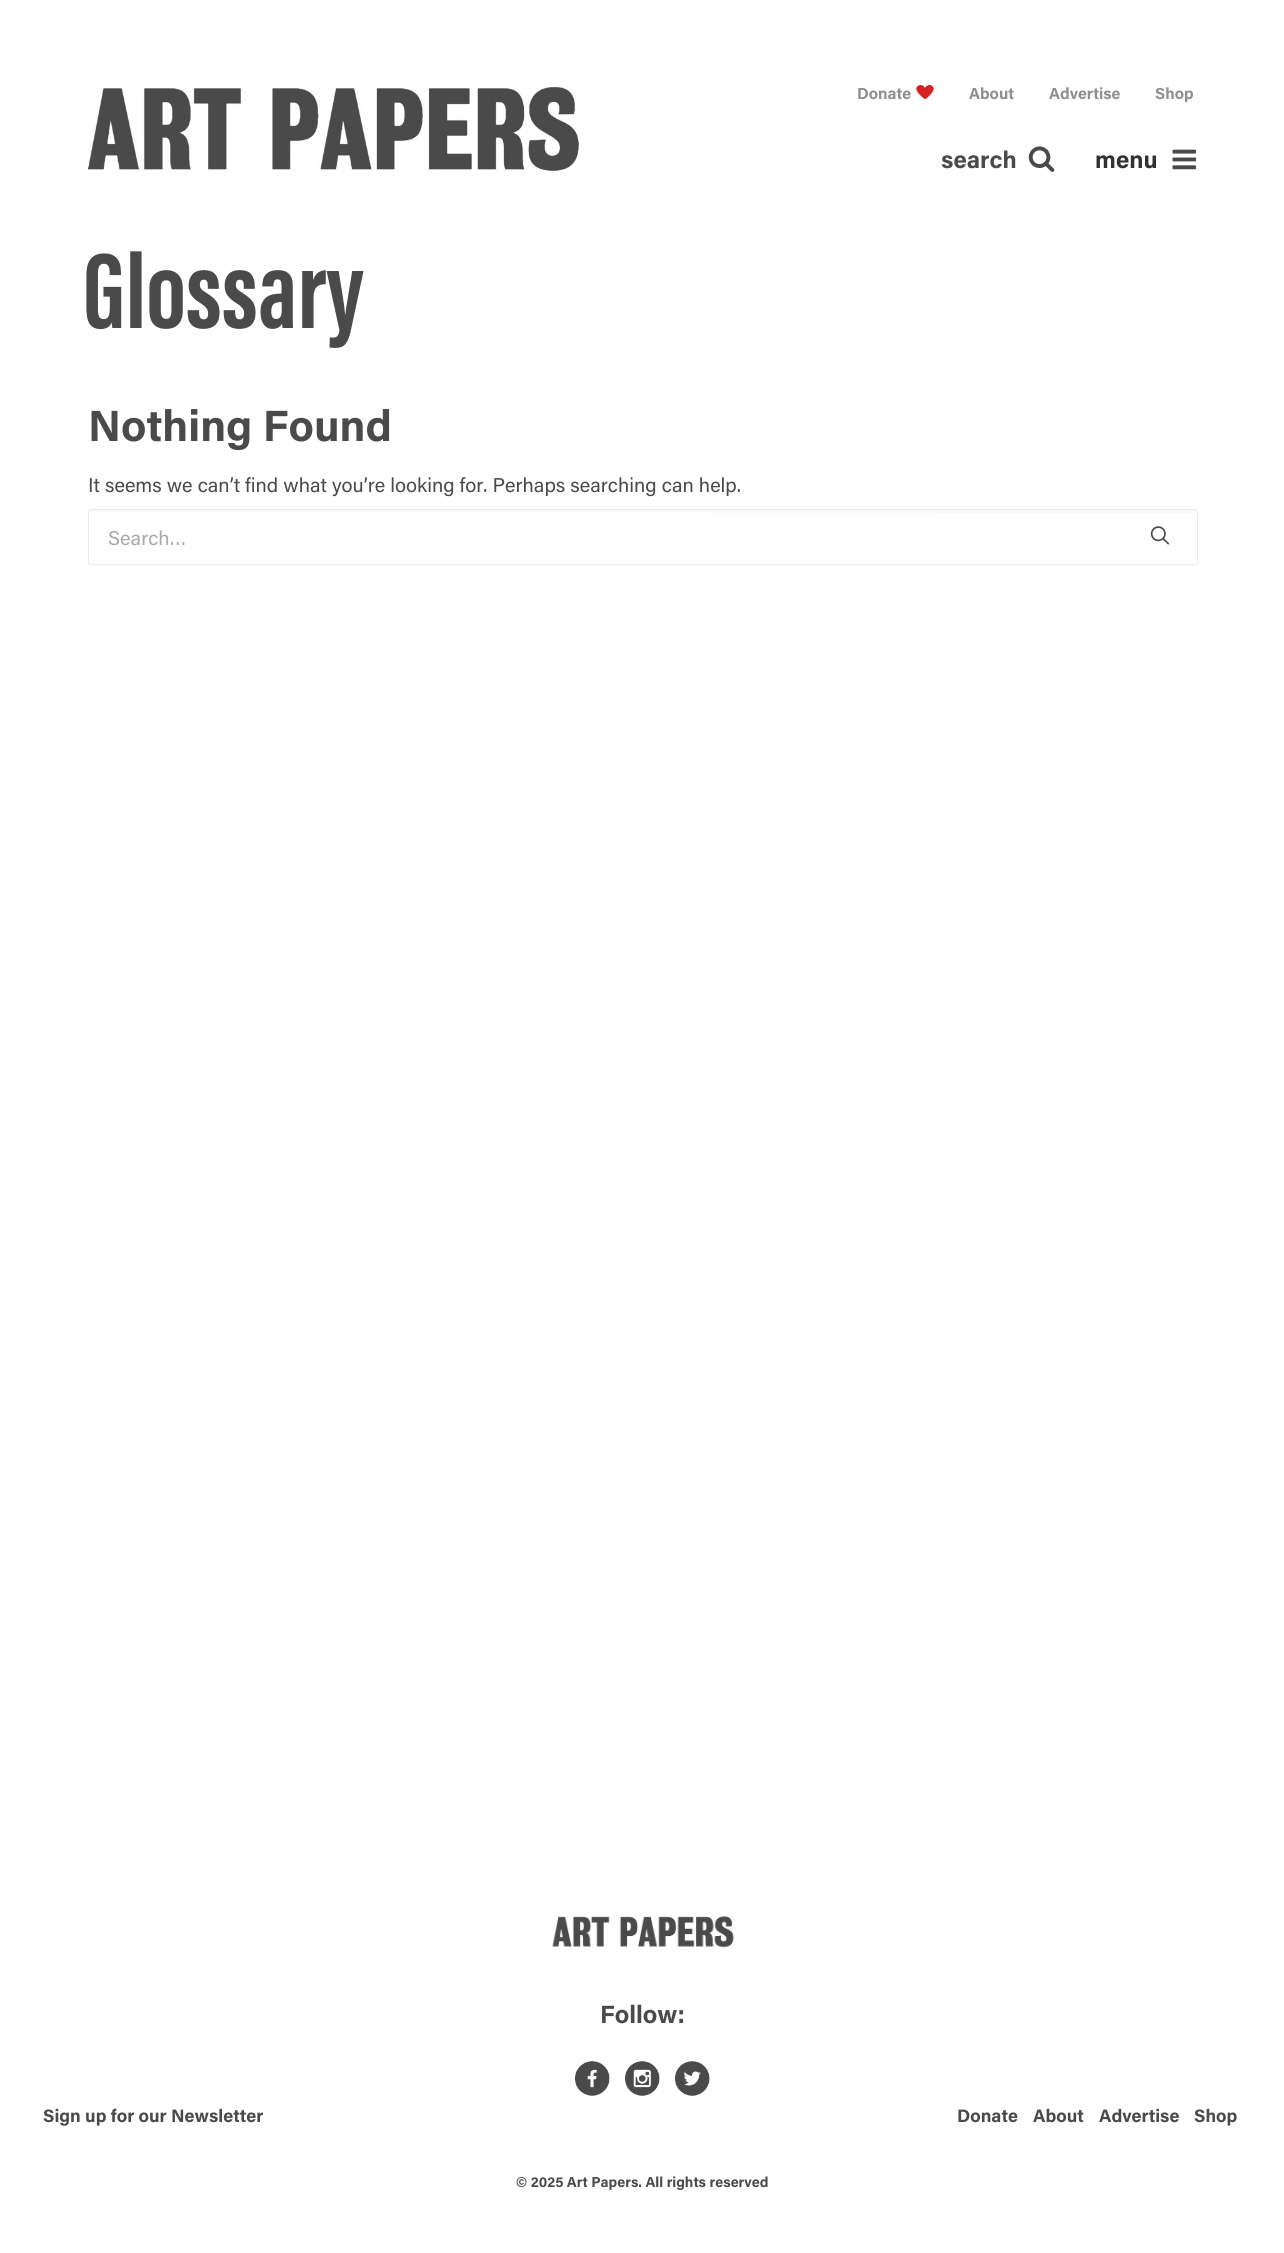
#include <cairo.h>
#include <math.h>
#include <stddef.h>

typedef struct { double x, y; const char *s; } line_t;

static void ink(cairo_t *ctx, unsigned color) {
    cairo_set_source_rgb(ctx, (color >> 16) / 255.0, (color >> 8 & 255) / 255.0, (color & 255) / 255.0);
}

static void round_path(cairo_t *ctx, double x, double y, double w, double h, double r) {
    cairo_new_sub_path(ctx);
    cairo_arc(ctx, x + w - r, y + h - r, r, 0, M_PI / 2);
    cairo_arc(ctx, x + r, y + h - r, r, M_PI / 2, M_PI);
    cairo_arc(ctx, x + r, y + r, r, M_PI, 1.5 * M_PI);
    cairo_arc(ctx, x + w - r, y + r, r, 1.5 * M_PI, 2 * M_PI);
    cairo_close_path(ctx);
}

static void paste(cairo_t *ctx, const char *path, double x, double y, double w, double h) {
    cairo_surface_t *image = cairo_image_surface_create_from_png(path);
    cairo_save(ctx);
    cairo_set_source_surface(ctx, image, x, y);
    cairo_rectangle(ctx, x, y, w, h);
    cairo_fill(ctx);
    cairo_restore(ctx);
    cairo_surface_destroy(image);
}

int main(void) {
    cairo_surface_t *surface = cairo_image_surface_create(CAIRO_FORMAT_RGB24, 1284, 2253);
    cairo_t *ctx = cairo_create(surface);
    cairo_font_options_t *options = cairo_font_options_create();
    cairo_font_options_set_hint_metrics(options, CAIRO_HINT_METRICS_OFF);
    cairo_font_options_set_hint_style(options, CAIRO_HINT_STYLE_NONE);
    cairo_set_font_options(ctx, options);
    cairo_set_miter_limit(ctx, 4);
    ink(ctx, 0xFFFFFF);
    cairo_paint(ctx);
    cairo_select_font_face(ctx, "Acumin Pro", CAIRO_FONT_SLANT_NORMAL, CAIRO_FONT_WEIGHT_BOLD);
    cairo_set_font_size(ctx, 16);
    ink(ctx, 0x8F8F8F);
    cairo_move_to(ctx, 857, 99);
    cairo_show_text(ctx, "Donate");
    paste(ctx, "media/1.png", 916, 85, 18, 15);
    {
        static const line_t items[] = {
            {969, 99, "About"},
            {1049, 99, "Advertise"},
            {1155, 99, "Shop"},
        };
        for (size_t i = 0; i < sizeof items / sizeof *items; i++) {
            cairo_move_to(ctx, items[i].x, items[i].y);
            cairo_show_text(ctx, items[i].s);
        }
    }
    cairo_set_font_size(ctx, 24);
    ink(ctx, 0x4A4A4A);
    cairo_move_to(ctx, 941, 168);
    cairo_show_text(ctx, "search");
    paste(ctx, "media/2.png", 1028, 146, 27, 26);
    ink(ctx, 0x303133);
    cairo_move_to(ctx, 1095, 168);
    cairo_show_text(ctx, "menu");
    paste(ctx, "media/3.png", 1172, 149, 25, 21);
    paste(ctx, "media/4.png", 87, 86, 492, 85);
    cairo_select_font_face(ctx, "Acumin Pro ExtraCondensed", CAIRO_FONT_SLANT_NORMAL, CAIRO_FONT_WEIGHT_BOLD);
    cairo_set_font_size(ctx, 110);
    ink(ctx, 0x4A4A4A);
    cairo_move_to(ctx, 83, 328);
    cairo_show_text(ctx, "Glossary");
    cairo_select_font_face(ctx, "Acumin Pro", CAIRO_FONT_SLANT_NORMAL, CAIRO_FONT_WEIGHT_BOLD);
    cairo_set_font_size(ctx, 43.75);
    cairo_move_to(ctx, 88, 441);
    cairo_show_text(ctx, "Nothing Found");
    cairo_select_font_face(ctx, "Acumin Pro", CAIRO_FONT_SLANT_NORMAL, CAIRO_FONT_WEIGHT_NORMAL);
    cairo_set_font_size(ctx, 20);
    cairo_move_to(ctx, 88, 492);
    cairo_show_text(ctx, "It seems we can’t find what you’re looking for. Perhaps searching can help.");
    ink(ctx, 0xF9F9F9);
    cairo_new_path(ctx);
    cairo_move_to(ctx, 90, 512);
    cairo_line_to(ctx, 1195, 513);
    cairo_line_to(ctx, 1196, 514);
    cairo_line_to(ctx, 1196, 511);
    cairo_line_to(ctx, 1195, 510);
    cairo_line_to(ctx, 90, 510);
    cairo_curve_to(ctx, 88, 511, 89, 513, 89, 514);
    cairo_curve_to(ctx, 89, 513, 89, 512, 90, 512);
    cairo_close_path(ctx);
    cairo_fill(ctx);
    round_path(ctx, 88.5, 509.5, 1109, 55, 2);
    ink(ctx, 0xEAEAEA);
    cairo_set_line_width(ctx, 1);
    cairo_stroke(ctx);
    ink(ctx, 0xA9A9A9);
    cairo_move_to(ctx, 108, 545);
    cairo_show_text(ctx, "Search…");
    paste(ctx, "media/5.png", 1150, 526, 20, 19);
    paste(ctx, "media/6.png", 552, 1916, 182, 32);
    cairo_select_font_face(ctx, "Acumin Pro", CAIRO_FONT_SLANT_NORMAL, CAIRO_FONT_WEIGHT_BOLD);
    cairo_set_font_size(ctx, 25);
    ink(ctx, 0x4A4A4A);
    cairo_move_to(ctx, 600, 2023);
    cairo_show_text(ctx, "Follow:");
    paste(ctx, "media/7.png", 575, 2061, 35, 35);
    paste(ctx, "media/8.png", 625, 2061, 35, 35);
    paste(ctx, "media/9.png", 675, 2061, 35, 35);
    cairo_set_font_size(ctx, 18);
    {
        static const line_t items[] = {
            {43, 2122, "Sign up for our Newsletter"},
            {957, 2122, "Donate"},
            {1033, 2122, "About"},
            {1099, 2122, "Advertise"},
            {1194, 2122, "Shop"},
        };
        for (size_t i = 0; i < sizeof items / sizeof *items; i++) {
            cairo_move_to(ctx, items[i].x, items[i].y);
            cairo_show_text(ctx, items[i].s);
        }
    }
    cairo_set_font_size(ctx, 14.4);
    cairo_move_to(ctx, 516, 2187);
    cairo_show_text(ctx, "© 2025 Art Papers. All rights reserved");
    cairo_surface_write_to_png(surface, "image.png");
    cairo_font_options_destroy(options);
    cairo_destroy(ctx);
    cairo_surface_destroy(surface);
    return 0;
}
